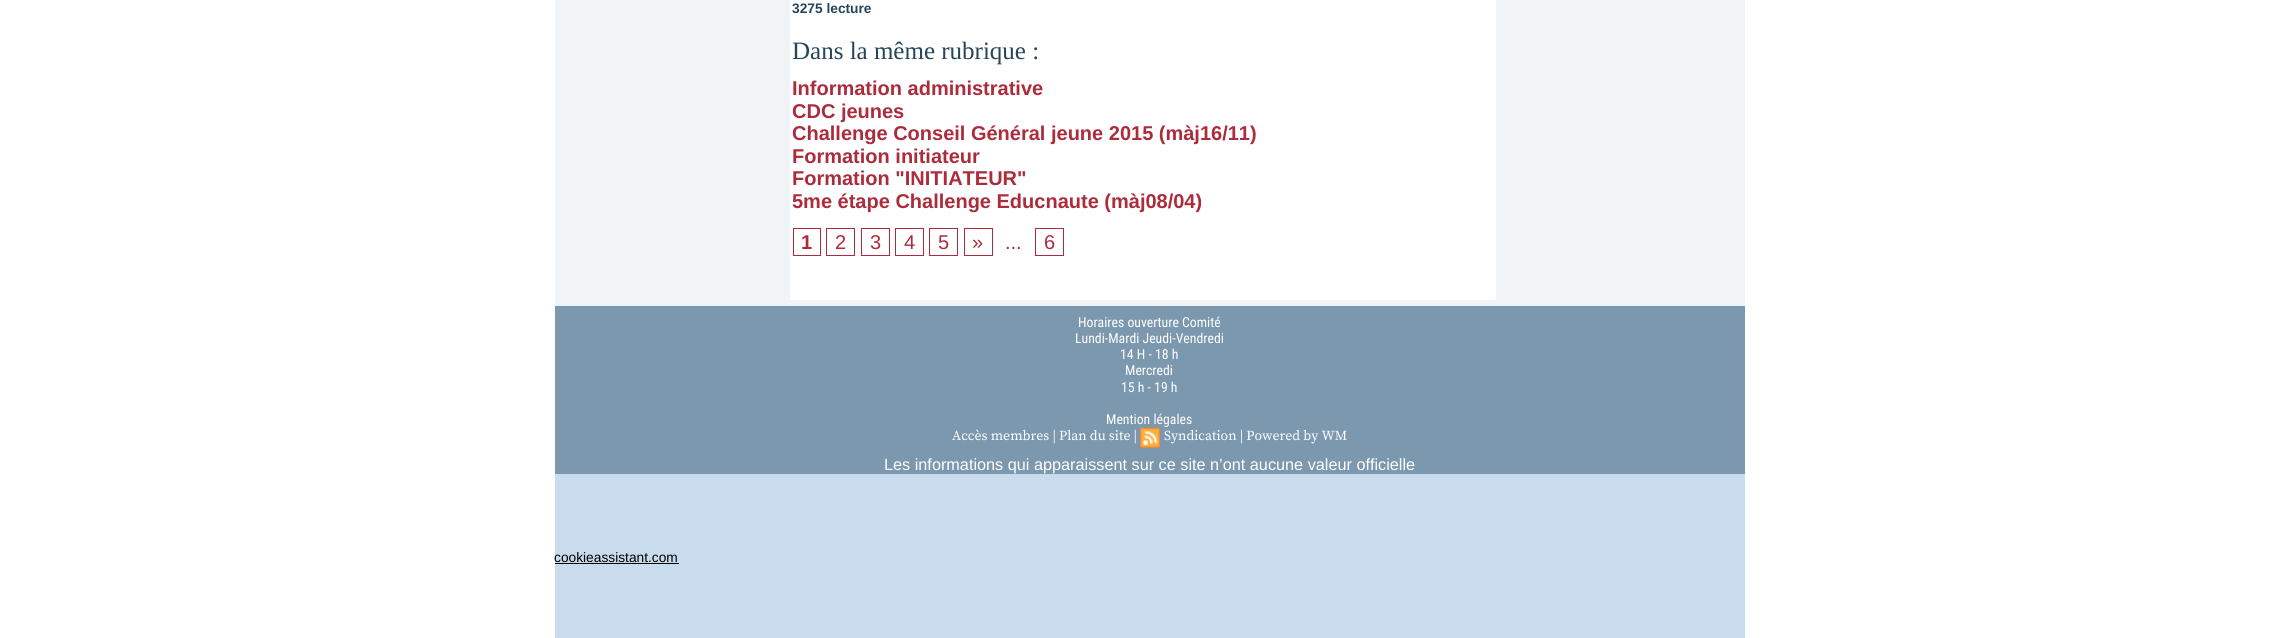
#include <cairo.h>
#include <math.h>
#include <stddef.h>

typedef struct { double x, y; const char *s; } line_t;

static void ink(cairo_t *ctx, unsigned color) {
    cairo_set_source_rgb(ctx, (color >> 16) / 255.0, (color >> 8 & 255) / 255.0, (color & 255) / 255.0);
}

static void paste(cairo_t *ctx, const char *path, double x, double y, double w, double h) {
    cairo_surface_t *image = cairo_image_surface_create_from_png(path);
    cairo_save(ctx);
    cairo_set_source_surface(ctx, image, x, y);
    cairo_rectangle(ctx, x, y, w, h);
    cairo_fill(ctx);
    cairo_restore(ctx);
    cairo_surface_destroy(image);
}

int main(void) {
    cairo_surface_t *surface = cairo_image_surface_create(CAIRO_FORMAT_RGB24, 2296, 638);
    cairo_t *ctx = cairo_create(surface);
    cairo_font_options_t *options = cairo_font_options_create();
    cairo_font_options_set_hint_metrics(options, CAIRO_HINT_METRICS_OFF);
    cairo_font_options_set_hint_style(options, CAIRO_HINT_STYLE_NONE);
    cairo_set_font_options(ctx, options);
    cairo_set_miter_limit(ctx, 4);
    ink(ctx, 0xFFFFFF);
    cairo_paint(ctx);
    ink(ctx, 0xF1F4F6);
    cairo_rectangle(ctx, 555, 0, 1190, 306);
    cairo_fill(ctx);
    ink(ctx, 0xFFFFFF);
    cairo_rectangle(ctx, 790, 0, 706, 300);
    cairo_fill(ctx);
    cairo_select_font_face(ctx, "Liberation Sans", CAIRO_FONT_SLANT_NORMAL, CAIRO_FONT_WEIGHT_BOLD);
    cairo_set_font_size(ctx, 13.75);
    ink(ctx, 0x24455A);
    cairo_move_to(ctx, 792, 13);
    cairo_show_text(ctx, "3275 lecture");
    cairo_select_font_face(ctx, "Liberation Serif", CAIRO_FONT_SLANT_NORMAL, CAIRO_FONT_WEIGHT_NORMAL);
    cairo_set_font_size(ctx, 25);
    cairo_move_to(ctx, 792, 59);
    cairo_show_text(ctx, "Dans la même rubrique :");
    cairo_select_font_face(ctx, "Liberation Sans", CAIRO_FONT_SLANT_NORMAL, CAIRO_FONT_WEIGHT_BOLD);
    cairo_set_font_size(ctx, 20);
    ink(ctx, 0xAC2C3B);
    {
        static const line_t items[] = {
            {792, 95, "Information administrative"},
            {792, 118, "CDC jeunes"},
            {792, 140, "Challenge Conseil Général jeune 2015 (màj16/11)"},
            {792, 163, "Formation initiateur"},
            {792, 185, "Formation \"INITIATEUR\""},
            {792, 208, "5me étape Challenge Educnaute (màj08/04)"},
        };
        for (size_t i = 0; i < sizeof items / sizeof *items; i++) {
            cairo_move_to(ctx, items[i].x, items[i].y);
            cairo_show_text(ctx, items[i].s);
        }
    }
    cairo_rectangle(ctx, 793.5, 228.5, 27, 27);
    cairo_set_line_width(ctx, 1);
    cairo_stroke(ctx);
    cairo_move_to(ctx, 801, 249);
    cairo_show_text(ctx, "1");
    cairo_rectangle(ctx, 826.5, 228.5, 28, 27);
    cairo_stroke(ctx);
    cairo_select_font_face(ctx, "Liberation Sans", CAIRO_FONT_SLANT_NORMAL, CAIRO_FONT_WEIGHT_NORMAL);
    cairo_move_to(ctx, 835, 249);
    cairo_show_text(ctx, "2");
    cairo_rectangle(ctx, 861.5, 228.5, 28, 27);
    cairo_stroke(ctx);
    cairo_move_to(ctx, 870, 249);
    cairo_show_text(ctx, "3");
    cairo_rectangle(ctx, 895.5, 228.5, 28, 27);
    cairo_stroke(ctx);
    cairo_move_to(ctx, 904, 249);
    cairo_show_text(ctx, "4");
    cairo_rectangle(ctx, 929.5, 228.5, 28, 27);
    cairo_stroke(ctx);
    cairo_move_to(ctx, 938, 249);
    cairo_show_text(ctx, "5");
    cairo_rectangle(ctx, 964.5, 228.5, 28, 27);
    cairo_stroke(ctx);
    cairo_move_to(ctx, 972, 249);
    cairo_show_text(ctx, "»");
    cairo_move_to(ctx, 1005, 249);
    cairo_show_text(ctx, "...");
    cairo_rectangle(ctx, 1035.5, 228.5, 28, 27);
    cairo_stroke(ctx);
    cairo_move_to(ctx, 1044, 249);
    cairo_show_text(ctx, "6");
    ink(ctx, 0xC9DCED);
    cairo_rectangle(ctx, 555, 474, 1190, 164);
    cairo_fill(ctx);
    ink(ctx, 0x7C98AE);
    cairo_rectangle(ctx, 555, 306, 1190, 168);
    cairo_fill(ctx);
    cairo_select_font_face(ctx, "Roboto Condensed", CAIRO_FONT_SLANT_NORMAL, CAIRO_FONT_WEIGHT_NORMAL);
    cairo_set_font_size(ctx, 13.75);
    ink(ctx, 0xFFFFFF);
    {
        static const line_t items[] = {
            {1078, 327, "Horaires ouverture Comité"},
            {1075, 343, "Lundi-Mardi Jeudi-Vendredi"},
            {1120, 359, "14 H - 18 h"},
            {1125, 375, "Mercredi"},
            {1121, 392, "15 h - 19 h"},
            {1106, 424, "Mention légales"},
        };
        for (size_t i = 0; i < sizeof items / sizeof *items; i++) {
            cairo_move_to(ctx, items[i].x, items[i].y);
            cairo_show_text(ctx, items[i].s);
        }
    }
    cairo_select_font_face(ctx, "Source Serif Pro", CAIRO_FONT_SLANT_NORMAL, CAIRO_FONT_WEIGHT_NORMAL);
    cairo_move_to(ctx, 952, 440);
    cairo_show_text(ctx, "Accès membres | Plan du site |");
    paste(ctx, "media/1.png", 1140, 427, 20, 21);
    cairo_move_to(ctx, 1164, 440);
    cairo_show_text(ctx, "Syndication | Powered by WM");
    cairo_select_font_face(ctx, "Liberation Sans", CAIRO_FONT_SLANT_NORMAL, CAIRO_FONT_WEIGHT_NORMAL);
    cairo_set_font_size(ctx, 16.25);
    cairo_move_to(ctx, 884, 470);
    cairo_show_text(ctx, "Les informations qui apparaissent sur ce site n’ont aucune valeur officielle");
    cairo_set_font_size(ctx, 13.75);
    ink(ctx, 0x000000);
    cairo_move_to(ctx, 554, 562);
    cairo_show_text(ctx, "cookieassistant.com");
    cairo_rectangle(ctx, 555, 563, 124, 1);
    cairo_fill(ctx);
    cairo_surface_write_to_png(surface, "image.png");
    cairo_font_options_destroy(options);
    cairo_destroy(ctx);
    cairo_surface_destroy(surface);
    return 0;
}
